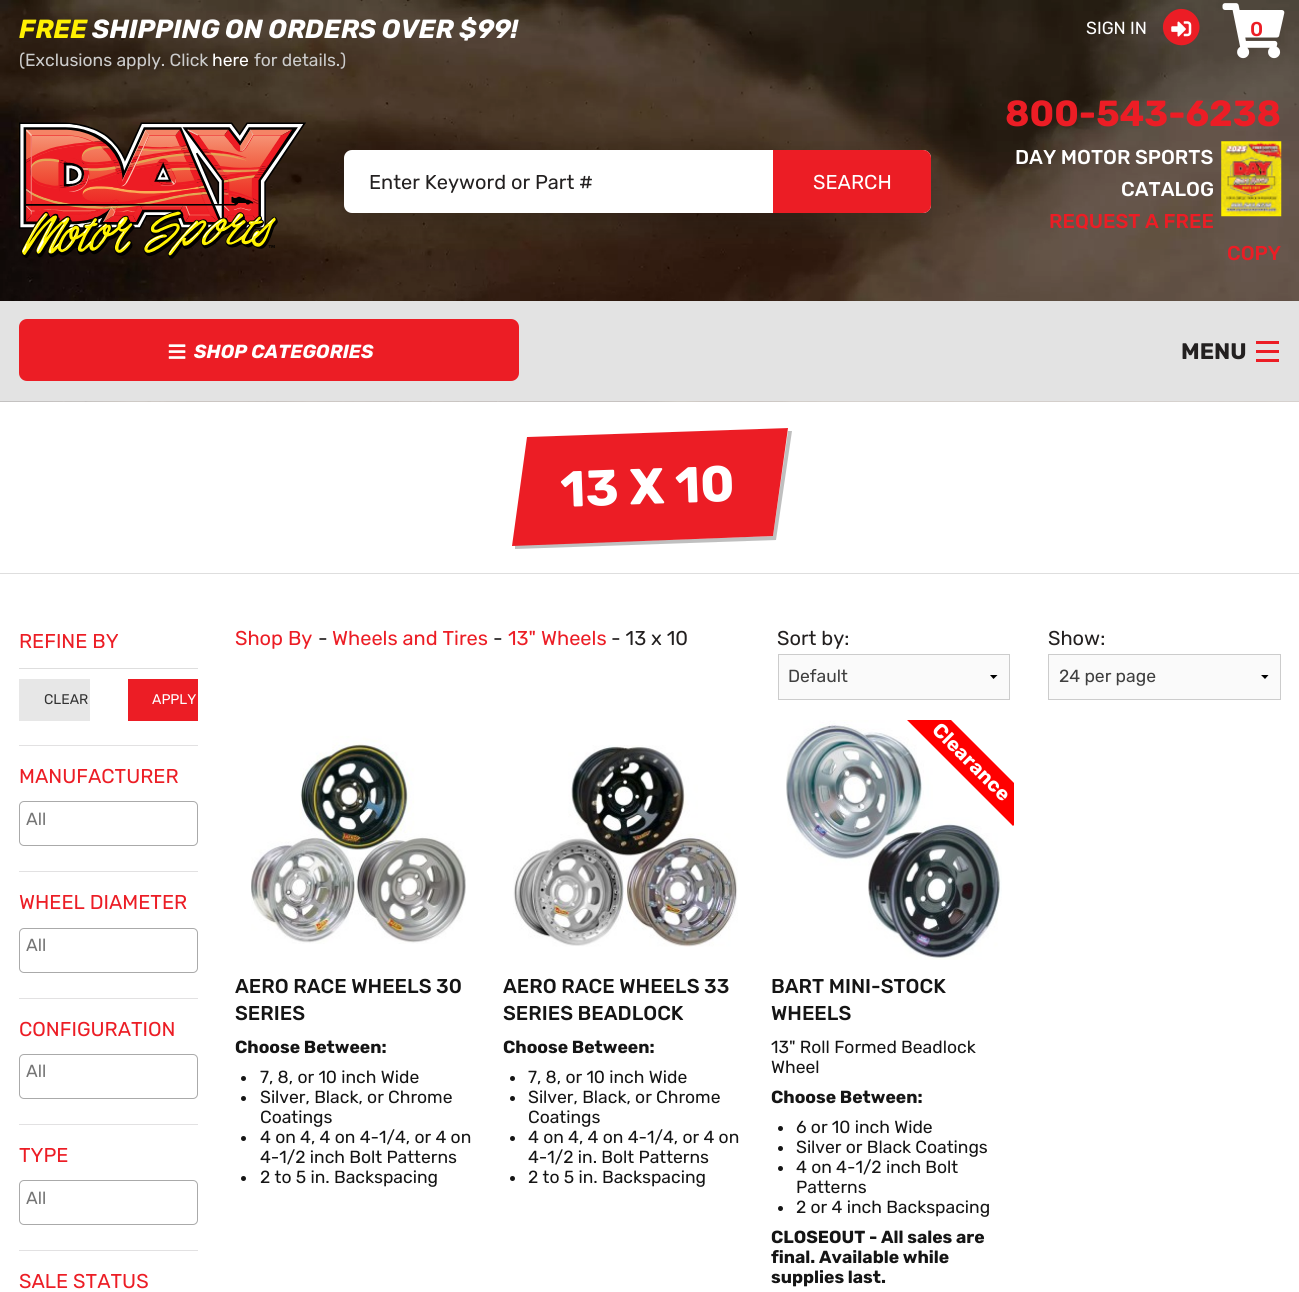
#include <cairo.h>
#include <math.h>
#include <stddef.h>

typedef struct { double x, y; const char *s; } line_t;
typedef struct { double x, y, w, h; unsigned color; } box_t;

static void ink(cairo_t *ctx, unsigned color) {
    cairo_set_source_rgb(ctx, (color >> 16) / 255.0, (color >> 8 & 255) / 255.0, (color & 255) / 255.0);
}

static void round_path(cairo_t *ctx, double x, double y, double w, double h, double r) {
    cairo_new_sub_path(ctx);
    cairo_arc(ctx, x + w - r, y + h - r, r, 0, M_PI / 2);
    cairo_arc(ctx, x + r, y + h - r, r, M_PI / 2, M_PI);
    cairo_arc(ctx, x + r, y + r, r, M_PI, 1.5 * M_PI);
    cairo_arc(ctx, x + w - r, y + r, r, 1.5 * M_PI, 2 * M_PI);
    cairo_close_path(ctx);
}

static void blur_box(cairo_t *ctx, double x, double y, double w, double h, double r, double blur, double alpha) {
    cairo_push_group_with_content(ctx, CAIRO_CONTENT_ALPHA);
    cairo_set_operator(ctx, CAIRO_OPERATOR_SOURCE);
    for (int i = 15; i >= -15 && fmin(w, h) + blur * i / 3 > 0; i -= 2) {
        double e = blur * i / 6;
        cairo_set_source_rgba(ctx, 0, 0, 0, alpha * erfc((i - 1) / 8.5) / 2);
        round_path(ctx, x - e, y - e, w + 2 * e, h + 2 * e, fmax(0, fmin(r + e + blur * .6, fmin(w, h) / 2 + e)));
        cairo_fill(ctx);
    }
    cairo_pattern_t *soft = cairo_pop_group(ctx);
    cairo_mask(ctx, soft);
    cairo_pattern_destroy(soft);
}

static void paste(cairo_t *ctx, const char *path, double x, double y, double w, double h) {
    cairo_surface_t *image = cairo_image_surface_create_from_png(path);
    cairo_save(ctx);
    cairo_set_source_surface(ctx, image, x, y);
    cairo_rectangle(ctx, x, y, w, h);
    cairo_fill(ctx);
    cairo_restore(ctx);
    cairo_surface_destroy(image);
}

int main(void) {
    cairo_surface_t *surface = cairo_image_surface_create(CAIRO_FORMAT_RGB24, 1299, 1292);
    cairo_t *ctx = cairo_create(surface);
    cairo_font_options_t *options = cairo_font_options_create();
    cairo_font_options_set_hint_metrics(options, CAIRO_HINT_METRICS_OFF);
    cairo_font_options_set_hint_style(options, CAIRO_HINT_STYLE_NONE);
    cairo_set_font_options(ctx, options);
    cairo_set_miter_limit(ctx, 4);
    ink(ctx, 0xFFFFFF);
    cairo_paint(ctx);
    paste(ctx, "media/1.png", 0, 0, 1299, 402);
    cairo_select_font_face(ctx, "Rubik Light", CAIRO_FONT_SLANT_ITALIC, CAIRO_FONT_WEIGHT_NORMAL);
    cairo_set_font_size(ctx, 26.25);
    ink(ctx, 0xFFF002);
    cairo_move_to(ctx, 19, 38);
    cairo_show_text(ctx, "FREE");
    ink(ctx, 0xFFFFFF);
    cairo_move_to(ctx, 92, 38);
    cairo_show_text(ctx, "SHIPPING ON ORDERS OVER $99!");
    cairo_select_font_face(ctx, "Rubik", CAIRO_FONT_SLANT_NORMAL, CAIRO_FONT_WEIGHT_NORMAL);
    cairo_set_font_size(ctx, 17.5);
    ink(ctx, 0xCCCCCC);
    cairo_move_to(ctx, 19, 66);
    cairo_show_text(ctx, "(Exclusions apply. Click");
    ink(ctx, 0xFFFFFF);
    cairo_move_to(ctx, 212, 66);
    cairo_show_text(ctx, "here");
    ink(ctx, 0xCCCCCC);
    cairo_move_to(ctx, 254, 66);
    cairo_show_text(ctx, "for details.)");
    ink(ctx, 0xFFFFFF);
    cairo_move_to(ctx, 1086, 34);
    cairo_show_text(ctx, "SIGN IN");
    ink(ctx, 0xEC1D25);
    cairo_new_path(ctx);
    cairo_move_to(ctx, 1168.5, 14.5);
    cairo_curve_to(ctx, 1180.5, 2, 1201, 12, 1199.5, 29);
    cairo_curve_to(ctx, 1199, 33, 1197, 37, 1194, 40);
    cairo_curve_to(ctx, 1182, 52, 1161.5, 42, 1163, 25.5);
    cairo_curve_to(ctx, 1163.5, 21, 1165.5, 17.5, 1168.5, 14.5);
    cairo_close_path(ctx);
    cairo_fill(ctx);
    paste(ctx, "media/2.png", 1171, 21, 21, 16);
    paste(ctx, "media/3.png", 1222, 3, 63, 56);
    cairo_select_font_face(ctx, "Rubik Medium", CAIRO_FONT_SLANT_NORMAL, CAIRO_FONT_WEIGHT_NORMAL);
    cairo_set_font_size(ctx, 20);
    cairo_move_to(ctx, 1250, 36);
    cairo_show_text(ctx, "0");
    paste(ctx, "media/4.png", 19, 122, 287, 137);
    ink(ctx, 0x000000);
    blur_box(ctx, 344, 160, 587, 63, 8, 12.5, 0.15);
    ink(ctx, 0xFFFFFF);
    round_path(ctx, 344, 150, 587, 63, 8);
    cairo_fill(ctx);
    cairo_select_font_face(ctx, "Rubik", CAIRO_FONT_SLANT_NORMAL, CAIRO_FONT_WEIGHT_NORMAL);
    ink(ctx, 0x232020);
    cairo_move_to(ctx, 369, 189);
    cairo_show_text(ctx, "Enter Keyword or Part #");
    ink(ctx, 0xEC1D25);
    cairo_new_path(ctx);
    cairo_move_to(ctx, 773, 150);
    cairo_line_to(ctx, 923, 150);
    cairo_curve_to(ctx, 927.5, 150, 931, 153.5, 931, 158);
    cairo_line_to(ctx, 931, 205);
    cairo_curve_to(ctx, 931, 209.5, 927.5, 213, 923, 213);
    cairo_line_to(ctx, 773, 213);
    cairo_close_path(ctx);
    cairo_fill(ctx);
    ink(ctx, 0xFFFFFF);
    cairo_move_to(ctx, 813, 189);
    cairo_show_text(ctx, "SEARCH");
    cairo_select_font_face(ctx, "Rubik", CAIRO_FONT_SLANT_NORMAL, CAIRO_FONT_WEIGHT_BOLD);
    cairo_set_font_size(ctx, 36.25);
    ink(ctx, 0xEC1D25);
    cairo_move_to(ctx, 1005, 126);
    cairo_show_text(ctx, "800-543-6238");
    cairo_select_font_face(ctx, "Rubik Medium", CAIRO_FONT_SLANT_NORMAL, CAIRO_FONT_WEIGHT_NORMAL);
    cairo_set_font_size(ctx, 20);
    ink(ctx, 0xFFFFFF);
    cairo_move_to(ctx, 1015, 164);
    cairo_show_text(ctx, "DAY MOTOR SPORTS");
    paste(ctx, "media/5.png", 1221, 141, 61, 76);
    cairo_move_to(ctx, 1121, 196);
    cairo_show_text(ctx, "CATALOG");
    ink(ctx, 0xEC1D25);
    cairo_move_to(ctx, 1049, 228);
    cairo_show_text(ctx, "REQUEST A FREE");
    cairo_move_to(ctx, 1227, 260);
    cairo_show_text(ctx, "COPY");
    ink(ctx, 0xE3E3E3);
    cairo_rectangle(ctx, 0, 301, 1299, 100);
    cairo_fill(ctx);
    ink(ctx, 0xEC1D25);
    round_path(ctx, 19, 319, 500, 62, 8);
    cairo_fill(ctx);
    paste(ctx, "media/6.png", 168, 344, 18, 15);
    cairo_select_font_face(ctx, "Rubik Light", CAIRO_FONT_SLANT_ITALIC, CAIRO_FONT_WEIGHT_NORMAL);
    cairo_set_font_size(ctx, 19);
    ink(ctx, 0xFFFFFF);
    cairo_move_to(ctx, 194, 358);
    cairo_show_text(ctx, "SHOP CATEGORIES");
    cairo_select_font_face(ctx, "Rubik", CAIRO_FONT_SLANT_NORMAL, CAIRO_FONT_WEIGHT_BOLD);
    cairo_set_font_size(ctx, 22.5);
    ink(ctx, 0x232020);
    cairo_move_to(ctx, 1181, 359);
    cairo_show_text(ctx, "MENU");
    {
        static const box_t items[] = {
            {1256, 359, 23, 3, 0xEC1D25},
            {1256, 350, 23, 3, 0xEC1D25},
            {1256, 341, 23, 3, 0xEC1D25},
            {0, 573, 1299, 1, 0xDEDEDE},
        };
        for (size_t i = 0; i < sizeof items / sizeof *items; i++) {
            ink(ctx, items[i].color);
            cairo_rectangle(ctx, items[i].x, items[i].y, items[i].w, items[i].h);
            cairo_fill(ctx);
        }
    }
    ink(ctx, 0xBFBFBF);
    cairo_new_path(ctx);
    cairo_move_to(ctx, 515, 545);
    cairo_line_to(ctx, 515, 549);
    cairo_line_to(ctx, 776, 540);
    cairo_line_to(ctx, 792, 431);
    cairo_line_to(ctx, 788, 431);
    cairo_line_to(ctx, 773, 536);
    cairo_close_path(ctx);
    cairo_fill(ctx);
    ink(ctx, 0xEC1D25);
    cairo_new_path(ctx);
    cairo_move_to(ctx, 527, 437);
    cairo_line_to(ctx, 788, 428);
    cairo_line_to(ctx, 773, 536);
    cairo_line_to(ctx, 512, 546);
    cairo_close_path(ctx);
    cairo_fill(ctx);
    cairo_set_font_size(ctx, 50.5);
    ink(ctx, 0xFFFFFF);
    cairo_save(ctx);
    cairo_translate(ctx, 561, 507);
    cairo_rotate(ctx, -2 * M_PI / 180);
    cairo_move_to(ctx, 0, 0);
    cairo_show_text(ctx, "13 X 10");
    cairo_restore(ctx);
    ink(ctx, 0xDEDEDE);
    cairo_rectangle(ctx, 19, 668, 179, 1);
    cairo_fill(ctx);
    cairo_select_font_face(ctx, "Rubik", CAIRO_FONT_SLANT_NORMAL, CAIRO_FONT_WEIGHT_NORMAL);
    cairo_set_font_size(ctx, 20);
    ink(ctx, 0xEC1D25);
    cairo_move_to(ctx, 19, 648);
    cairo_show_text(ctx, "REFINE BY");
    ink(ctx, 0xE7E7E7);
    cairo_rectangle(ctx, 19, 679, 71, 42);
    cairo_fill(ctx);
    cairo_set_font_size(ctx, 14);
    ink(ctx, 0x333333);
    cairo_move_to(ctx, 44, 704);
    cairo_show_text(ctx, "CLEAR");
    ink(ctx, 0xEC1D25);
    cairo_rectangle(ctx, 128, 679, 70, 42);
    cairo_fill(ctx);
    ink(ctx, 0xFFFFFF);
    cairo_move_to(ctx, 152, 704);
    cairo_show_text(ctx, "APPLY");
    ink(ctx, 0xE2E1E2);
    cairo_rectangle(ctx, 19, 745, 179, 1);
    cairo_fill(ctx);
    cairo_rectangle(ctx, 19, 871, 179, 1);
    cairo_fill(ctx);
    cairo_set_font_size(ctx, 20);
    ink(ctx, 0xEC1D25);
    cairo_move_to(ctx, 19, 783);
    cairo_show_text(ctx, "MANUFACTURER");
    round_path(ctx, 19.5, 801.5, 178, 44, 4.5);
    ink(ctx, 0xAAAAAA);
    cairo_set_line_width(ctx, 1);
    cairo_stroke(ctx);
    cairo_set_font_size(ctx, 17.5);
    ink(ctx, 0x757575);
    cairo_move_to(ctx, 26, 825);
    cairo_show_text(ctx, "All");
    ink(ctx, 0xE2E1E2);
    cairo_rectangle(ctx, 19, 998, 179, 1);
    cairo_fill(ctx);
    cairo_set_font_size(ctx, 20);
    ink(ctx, 0xEC1D25);
    cairo_move_to(ctx, 19, 909);
    cairo_show_text(ctx, "WHEEL DIAMETER");
    round_path(ctx, 19.5, 928.5, 178, 44, 4.5);
    ink(ctx, 0xAAAAAA);
    cairo_stroke(ctx);
    cairo_set_font_size(ctx, 17.5);
    ink(ctx, 0x757575);
    cairo_move_to(ctx, 26, 951);
    cairo_show_text(ctx, "All");
    ink(ctx, 0xE2E1E2);
    cairo_rectangle(ctx, 19, 1124, 179, 1);
    cairo_fill(ctx);
    cairo_set_font_size(ctx, 20);
    ink(ctx, 0xEC1D25);
    cairo_move_to(ctx, 19, 1036);
    cairo_show_text(ctx, "CONFIGURATION");
    round_path(ctx, 19.5, 1054.5, 178, 44, 4.5);
    ink(ctx, 0xAAAAAA);
    cairo_stroke(ctx);
    cairo_set_font_size(ctx, 17.5);
    ink(ctx, 0x757575);
    cairo_move_to(ctx, 26, 1077);
    cairo_show_text(ctx, "All");
    ink(ctx, 0xE2E1E2);
    cairo_rectangle(ctx, 19, 1250, 179, 1);
    cairo_fill(ctx);
    cairo_set_font_size(ctx, 20);
    ink(ctx, 0xEC1D25);
    cairo_move_to(ctx, 19, 1162);
    cairo_show_text(ctx, "TYPE");
    round_path(ctx, 19.5, 1180.5, 178, 44, 4.5);
    ink(ctx, 0xAAAAAA);
    cairo_stroke(ctx);
    cairo_set_font_size(ctx, 17.5);
    ink(ctx, 0x757575);
    cairo_move_to(ctx, 26, 1204);
    cairo_show_text(ctx, "All");
    cairo_set_font_size(ctx, 20);
    ink(ctx, 0xEC1D25);
    cairo_move_to(ctx, 19, 1288);
    cairo_show_text(ctx, "SALE STATUS");
    cairo_move_to(ctx, 235, 645);
    cairo_show_text(ctx, "Shop By");
    ink(ctx, 0x232020);
    cairo_move_to(ctx, 318, 645);
    cairo_show_text(ctx, "-");
    ink(ctx, 0xEC1D25);
    cairo_move_to(ctx, 332, 645);
    cairo_show_text(ctx, "Wheels and Tires");
    ink(ctx, 0x232020);
    cairo_move_to(ctx, 493, 645);
    cairo_show_text(ctx, "-");
    ink(ctx, 0xEC1D25);
    cairo_move_to(ctx, 508, 645);
    cairo_show_text(ctx, "13\" Wheels");
    ink(ctx, 0x232020);
    cairo_move_to(ctx, 611, 645);
    cairo_show_text(ctx, "- 13 x 10");
    cairo_move_to(ctx, 777, 645);
    cairo_show_text(ctx, "Sort by:");
    ink(ctx, 0xFAFAFA);
    cairo_rectangle(ctx, 779, 655, 230, 44);
    cairo_fill(ctx);
    ink(ctx, 0x000000);
    cairo_new_path(ctx);
    cairo_move_to(ctx, 997.5, 675);
    cairo_line_to(ctx, 993.5, 679);
    cairo_line_to(ctx, 990, 675);
    cairo_close_path(ctx);
    cairo_fill(ctx);
    cairo_rectangle(ctx, 778.5, 654.5, 231, 45);
    ink(ctx, 0xCCCCCC);
    cairo_stroke(ctx);
    cairo_set_font_size(ctx, 17.5);
    ink(ctx, 0x3F3F3F);
    cairo_move_to(ctx, 788, 682);
    cairo_show_text(ctx, "Default");
    cairo_set_font_size(ctx, 20);
    ink(ctx, 0x232020);
    cairo_move_to(ctx, 1048, 645);
    cairo_show_text(ctx, "Show:");
    ink(ctx, 0xFAFAFA);
    cairo_rectangle(ctx, 1049, 655, 231, 44);
    cairo_fill(ctx);
    ink(ctx, 0x000000);
    cairo_new_path(ctx);
    cairo_move_to(ctx, 1268.5, 675);
    cairo_line_to(ctx, 1265, 679);
    cairo_line_to(ctx, 1261, 675);
    cairo_close_path(ctx);
    cairo_fill(ctx);
    cairo_rectangle(ctx, 1048.5, 654.5, 232, 45);
    ink(ctx, 0xCCCCCC);
    cairo_stroke(ctx);
    cairo_set_font_size(ctx, 17.5);
    ink(ctx, 0x3F3F3F);
    cairo_move_to(ctx, 1059, 682);
    cairo_show_text(ctx, "24 per page");
    paste(ctx, "media/7.png", 251, 736, 215, 208);
    cairo_select_font_face(ctx, "Rubik Medium", CAIRO_FONT_SLANT_NORMAL, CAIRO_FONT_WEIGHT_NORMAL);
    cairo_set_font_size(ctx, 20);
    ink(ctx, 0x151515);
    cairo_move_to(ctx, 235, 993);
    cairo_show_text(ctx, "AERO RACE WHEELS 30");
    cairo_move_to(ctx, 235, 1020);
    cairo_show_text(ctx, "SERIES");
    cairo_select_font_face(ctx, "Rubik", CAIRO_FONT_SLANT_NORMAL, CAIRO_FONT_WEIGHT_BOLD);
    cairo_set_font_size(ctx, 17.5);
    cairo_move_to(ctx, 235, 1053);
    cairo_show_text(ctx, "Choose Between:");
    cairo_new_path(ctx);
    cairo_arc(ctx, 243.5, 1078.5, 2.5, 0, 2 * M_PI);
    cairo_fill(ctx);
    cairo_select_font_face(ctx, "Rubik", CAIRO_FONT_SLANT_NORMAL, CAIRO_FONT_WEIGHT_NORMAL);
    cairo_move_to(ctx, 260, 1083);
    cairo_show_text(ctx, "7, 8, or 10 inch Wide");
    cairo_new_path(ctx);
    cairo_arc(ctx, 243.5, 1098.5, 2.5, 0, 2 * M_PI);
    cairo_fill(ctx);
    cairo_move_to(ctx, 260, 1103);
    cairo_show_text(ctx, "Silver, Black, or Chrome");
    cairo_move_to(ctx, 260, 1123);
    cairo_show_text(ctx, "Coatings");
    cairo_new_path(ctx);
    cairo_arc(ctx, 243.5, 1138.5, 2.5, 0, 2 * M_PI);
    cairo_fill(ctx);
    cairo_move_to(ctx, 260, 1143);
    cairo_show_text(ctx, "4 on 4, 4 on 4-1/4, or 4 on");
    cairo_move_to(ctx, 260, 1163);
    cairo_show_text(ctx, "4-1/2 inch Bolt Patterns");
    cairo_new_path(ctx);
    cairo_arc(ctx, 243.5, 1178.5, 2.5, 0, 2 * M_PI);
    cairo_fill(ctx);
    cairo_move_to(ctx, 260, 1183);
    cairo_show_text(ctx, "2 to 5 in. Backspacing");
    paste(ctx, "media/8.png", 513, 745, 225, 202);
    cairo_select_font_face(ctx, "Rubik Medium", CAIRO_FONT_SLANT_NORMAL, CAIRO_FONT_WEIGHT_NORMAL);
    cairo_set_font_size(ctx, 20);
    cairo_move_to(ctx, 503, 993);
    cairo_show_text(ctx, "AERO RACE WHEELS 33");
    cairo_move_to(ctx, 503, 1020);
    cairo_show_text(ctx, "SERIES BEADLOCK");
    cairo_select_font_face(ctx, "Rubik", CAIRO_FONT_SLANT_NORMAL, CAIRO_FONT_WEIGHT_BOLD);
    cairo_set_font_size(ctx, 17.5);
    cairo_move_to(ctx, 503, 1053);
    cairo_show_text(ctx, "Choose Between:");
    cairo_new_path(ctx);
    cairo_arc(ctx, 512.5, 1078.5, 2.5, 0, 2 * M_PI);
    cairo_fill(ctx);
    cairo_select_font_face(ctx, "Rubik", CAIRO_FONT_SLANT_NORMAL, CAIRO_FONT_WEIGHT_NORMAL);
    cairo_move_to(ctx, 528, 1083);
    cairo_show_text(ctx, "7, 8, or 10 inch Wide");
    cairo_new_path(ctx);
    cairo_arc(ctx, 512.5, 1098.5, 2.5, 0, 2 * M_PI);
    cairo_fill(ctx);
    cairo_move_to(ctx, 528, 1103);
    cairo_show_text(ctx, "Silver, Black, or Chrome");
    cairo_move_to(ctx, 528, 1123);
    cairo_show_text(ctx, "Coatings");
    cairo_new_path(ctx);
    cairo_arc(ctx, 512.5, 1138.5, 2.5, 0, 2 * M_PI);
    cairo_fill(ctx);
    cairo_move_to(ctx, 528, 1143);
    cairo_show_text(ctx, "4 on 4, 4 on 4-1/4, or 4 on");
    cairo_move_to(ctx, 528, 1163);
    cairo_show_text(ctx, "4-1/2 in. Bolt Patterns");
    cairo_new_path(ctx);
    cairo_arc(ctx, 512.5, 1178.5, 2.5, 0, 2 * M_PI);
    cairo_fill(ctx);
    cairo_move_to(ctx, 528, 1183);
    cairo_show_text(ctx, "2 to 5 in. Backspacing");
    paste(ctx, "media/9.png", 786, 720, 216, 240);
    cairo_save(ctx);
    cairo_rectangle(ctx, 771, 720, 243, 243);
    cairo_clip(ctx);
    ink(ctx, 0xFF0000);
    cairo_new_path(ctx);
    cairo_move_to(ctx, 929, 698);
    cairo_line_to(ctx, 1035, 804);
    cairo_line_to(ctx, 1013, 826);
    cairo_line_to(ctx, 907, 720);
    cairo_close_path(ctx);
    cairo_fill(ctx);
    cairo_restore(ctx);
    cairo_select_font_face(ctx, "Rubik", CAIRO_FONT_SLANT_NORMAL, CAIRO_FONT_WEIGHT_BOLD);
    cairo_set_font_size(ctx, 20);
    ink(ctx, 0xFFFFFF);
    cairo_save(ctx);
    cairo_translate(ctx, 931, 731);
    cairo_rotate(ctx, 45 * M_PI / 180);
    cairo_move_to(ctx, 0, 0);
    cairo_show_text(ctx, "Clearance");
    cairo_restore(ctx);
    cairo_select_font_face(ctx, "Rubik Medium", CAIRO_FONT_SLANT_NORMAL, CAIRO_FONT_WEIGHT_NORMAL);
    ink(ctx, 0x151515);
    cairo_move_to(ctx, 771, 993);
    cairo_show_text(ctx, "BART MINI-STOCK");
    cairo_move_to(ctx, 771, 1020);
    cairo_show_text(ctx, "WHEELS");
    cairo_select_font_face(ctx, "Rubik", CAIRO_FONT_SLANT_NORMAL, CAIRO_FONT_WEIGHT_NORMAL);
    cairo_set_font_size(ctx, 17.5);
    cairo_move_to(ctx, 771, 1053);
    cairo_show_text(ctx, "13\" Roll Formed Beadlock");
    cairo_move_to(ctx, 771, 1073);
    cairo_show_text(ctx, "Wheel");
    cairo_select_font_face(ctx, "Rubik", CAIRO_FONT_SLANT_NORMAL, CAIRO_FONT_WEIGHT_BOLD);
    cairo_move_to(ctx, 771, 1103);
    cairo_show_text(ctx, "Choose Between:");
    cairo_new_path(ctx);
    cairo_arc(ctx, 780.5, 1128.5, 2.5, 0, 2 * M_PI);
    cairo_fill(ctx);
    cairo_select_font_face(ctx, "Rubik", CAIRO_FONT_SLANT_NORMAL, CAIRO_FONT_WEIGHT_NORMAL);
    cairo_move_to(ctx, 796, 1133);
    cairo_show_text(ctx, "6 or 10 inch Wide");
    cairo_new_path(ctx);
    cairo_arc(ctx, 780.5, 1148.5, 2.5, 0, 2 * M_PI);
    cairo_fill(ctx);
    cairo_move_to(ctx, 796, 1153);
    cairo_show_text(ctx, "Silver or Black Coatings");
    cairo_new_path(ctx);
    cairo_arc(ctx, 780.5, 1168.5, 2.5, 0, 2 * M_PI);
    cairo_fill(ctx);
    cairo_move_to(ctx, 796, 1173);
    cairo_show_text(ctx, "4 on 4-1/2 inch Bolt");
    cairo_move_to(ctx, 796, 1193);
    cairo_show_text(ctx, "Patterns");
    cairo_new_path(ctx);
    cairo_arc(ctx, 780.5, 1208.5, 2.5, 0, 2 * M_PI);
    cairo_fill(ctx);
    cairo_move_to(ctx, 796, 1213);
    cairo_show_text(ctx, "2 or 4 inch Backspacing");
    cairo_select_font_face(ctx, "Rubik", CAIRO_FONT_SLANT_NORMAL, CAIRO_FONT_WEIGHT_BOLD);
    {
        static const line_t items[] = {
            {771, 1243, "CLOSEOUT - All sales are"},
            {771, 1263, "final. Available while"},
            {771, 1283, "supplies last."},
        };
        for (size_t i = 0; i < sizeof items / sizeof *items; i++) {
            cairo_move_to(ctx, items[i].x, items[i].y);
            cairo_show_text(ctx, items[i].s);
        }
    }
    cairo_surface_write_to_png(surface, "image.png");
    cairo_font_options_destroy(options);
    cairo_destroy(ctx);
    cairo_surface_destroy(surface);
    return 0;
}
